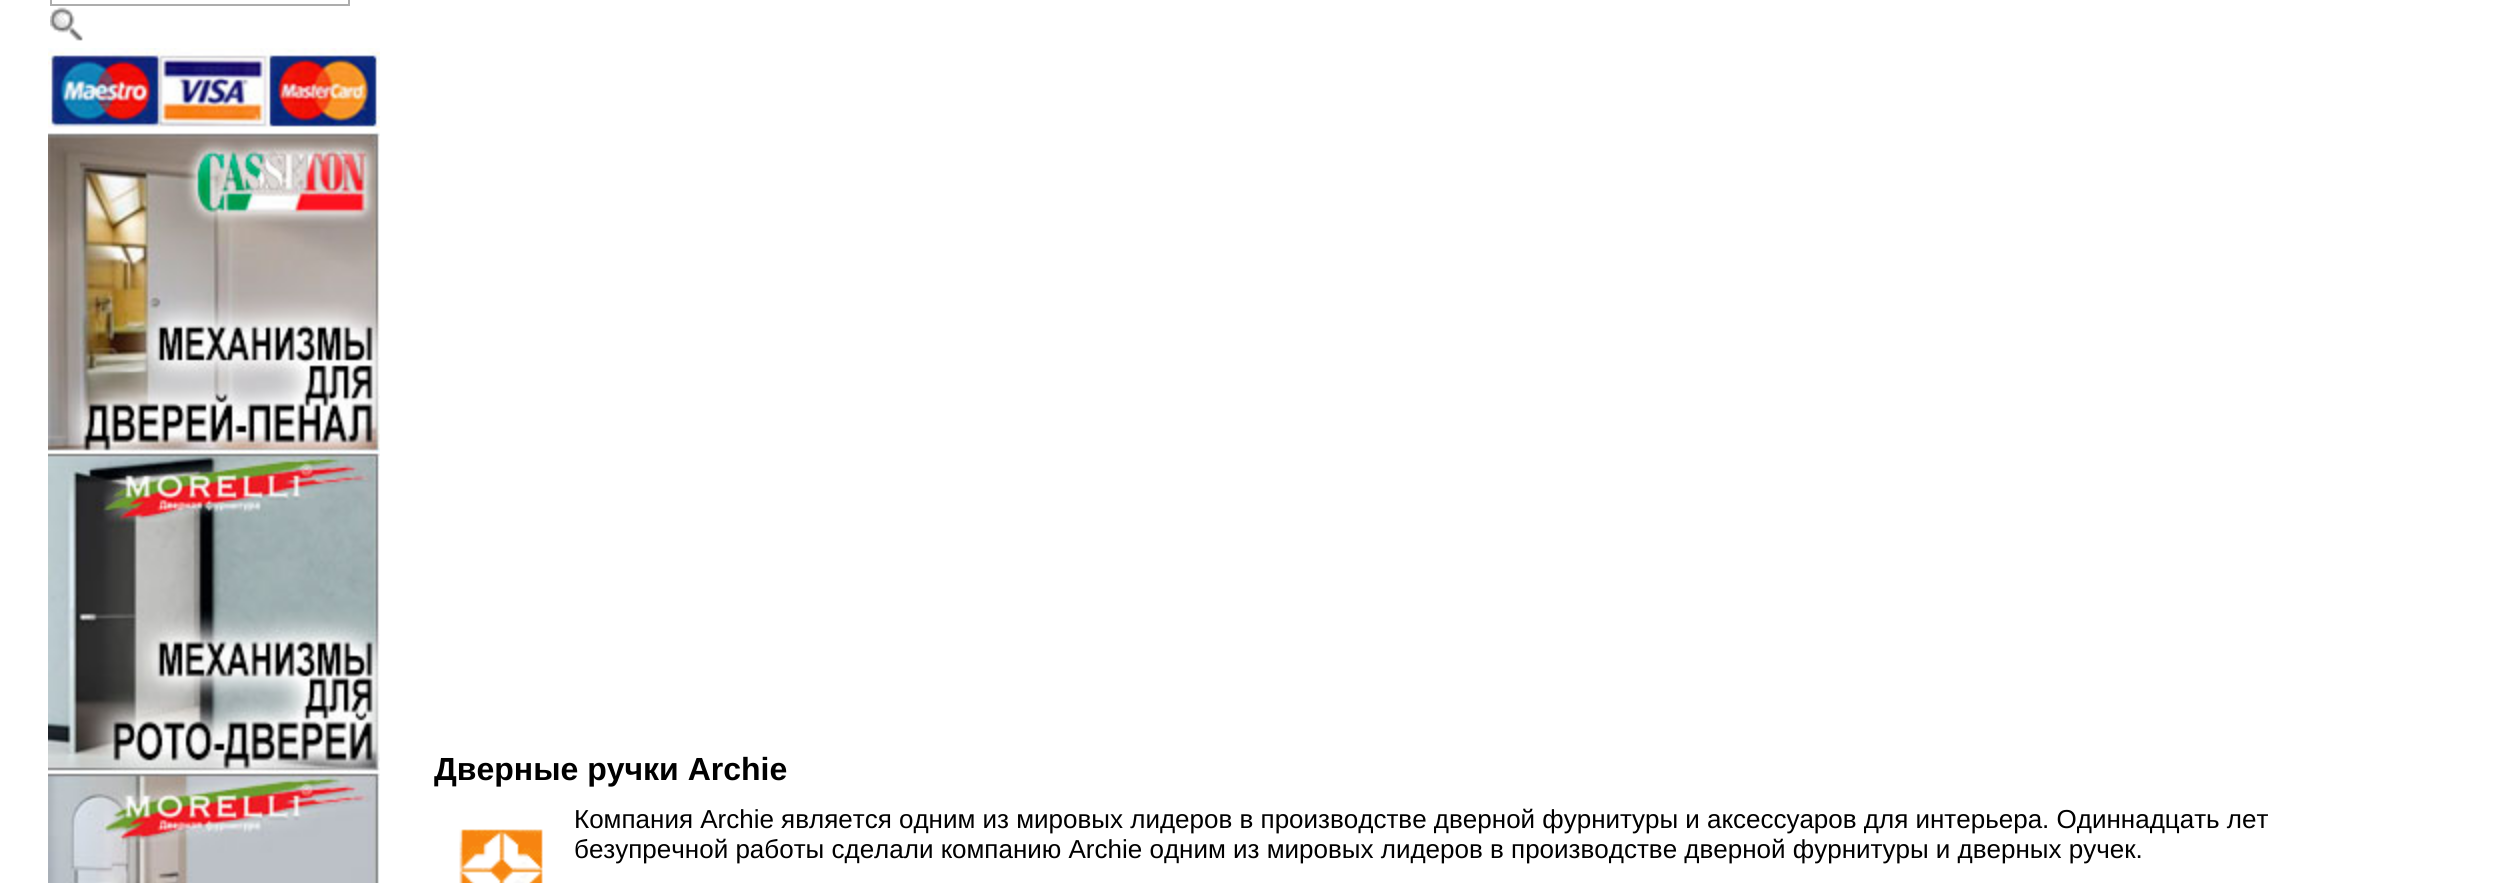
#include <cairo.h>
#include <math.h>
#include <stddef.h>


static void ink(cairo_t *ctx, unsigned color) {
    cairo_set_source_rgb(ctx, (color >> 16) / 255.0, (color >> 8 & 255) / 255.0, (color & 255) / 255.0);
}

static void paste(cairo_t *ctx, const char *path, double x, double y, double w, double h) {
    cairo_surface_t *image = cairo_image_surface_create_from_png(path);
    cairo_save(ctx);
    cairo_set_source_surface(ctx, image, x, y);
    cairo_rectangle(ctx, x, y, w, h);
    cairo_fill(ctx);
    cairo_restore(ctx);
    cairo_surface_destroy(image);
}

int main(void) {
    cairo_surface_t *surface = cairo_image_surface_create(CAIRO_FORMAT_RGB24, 2496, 883);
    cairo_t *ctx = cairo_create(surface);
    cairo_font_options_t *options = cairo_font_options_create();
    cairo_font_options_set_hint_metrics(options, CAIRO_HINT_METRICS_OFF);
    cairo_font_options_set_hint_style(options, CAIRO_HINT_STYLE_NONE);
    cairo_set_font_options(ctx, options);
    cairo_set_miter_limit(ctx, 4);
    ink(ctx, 0xFFFFFF);
    cairo_paint(ctx);
    cairo_rectangle(ctx, 51, -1, 298, 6);
    ink(ctx, 0xADADAD);
    cairo_stroke(ctx);
    paste(ctx, "media/1.png", 50, 7, 33, 34);
    paste(ctx, "media/2.png", 48, 48, 332, 81);
    paste(ctx, "media/3.png", 48, 132, 332, 320);
    paste(ctx, "media/4.png", 48, 452, 332, 320);
    paste(ctx, "media/5.png", 48, 772, 332, 111);
    cairo_select_font_face(ctx, "Liberation Sans", CAIRO_FONT_SLANT_NORMAL, CAIRO_FONT_WEIGHT_BOLD);
    cairo_set_font_size(ctx, 32);
    ink(ctx, 0x000000);
    cairo_move_to(ctx, 434, 780);
    cairo_show_text(ctx, "Дверные ручки Archie");
    cairo_select_font_face(ctx, "Liberation Sans", CAIRO_FONT_SLANT_NORMAL, CAIRO_FONT_WEIGHT_NORMAL);
    cairo_set_font_size(ctx, 26);
    cairo_move_to(ctx, 574, 828);
    cairo_show_text(ctx, "Компания Archie является одним из мировых лидеров в производстве дверной фурнитуры и аксессуаров для интерьера. Одиннадцать лет");
    paste(ctx, "media/6.png", 459, 829, 84, 54);
    cairo_move_to(ctx, 574, 858);
    cairo_show_text(ctx, "безупречной работы сделали компанию Archie одним из мировых лидеров в производстве дверной фурнитуры и дверных ручек.");
    cairo_surface_write_to_png(surface, "image.png");
    cairo_font_options_destroy(options);
    cairo_destroy(ctx);
    cairo_surface_destroy(surface);
    return 0;
}
